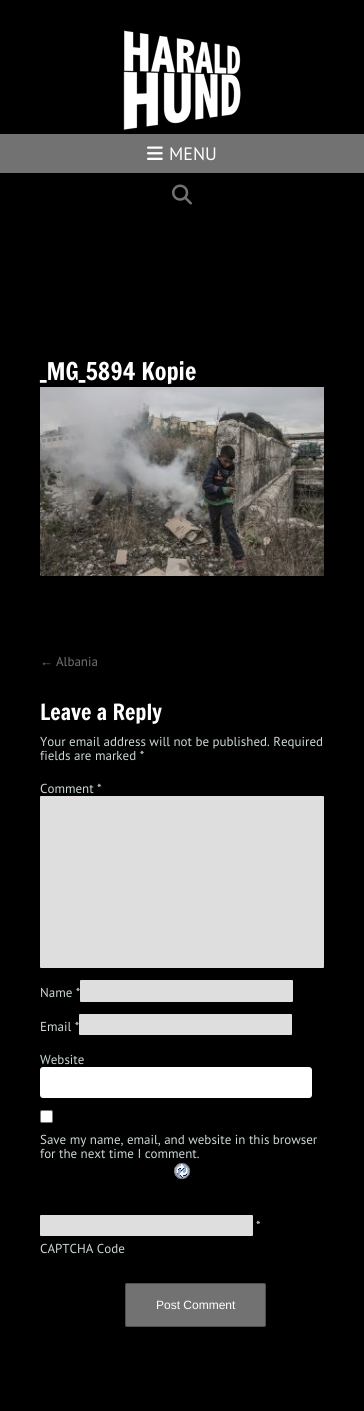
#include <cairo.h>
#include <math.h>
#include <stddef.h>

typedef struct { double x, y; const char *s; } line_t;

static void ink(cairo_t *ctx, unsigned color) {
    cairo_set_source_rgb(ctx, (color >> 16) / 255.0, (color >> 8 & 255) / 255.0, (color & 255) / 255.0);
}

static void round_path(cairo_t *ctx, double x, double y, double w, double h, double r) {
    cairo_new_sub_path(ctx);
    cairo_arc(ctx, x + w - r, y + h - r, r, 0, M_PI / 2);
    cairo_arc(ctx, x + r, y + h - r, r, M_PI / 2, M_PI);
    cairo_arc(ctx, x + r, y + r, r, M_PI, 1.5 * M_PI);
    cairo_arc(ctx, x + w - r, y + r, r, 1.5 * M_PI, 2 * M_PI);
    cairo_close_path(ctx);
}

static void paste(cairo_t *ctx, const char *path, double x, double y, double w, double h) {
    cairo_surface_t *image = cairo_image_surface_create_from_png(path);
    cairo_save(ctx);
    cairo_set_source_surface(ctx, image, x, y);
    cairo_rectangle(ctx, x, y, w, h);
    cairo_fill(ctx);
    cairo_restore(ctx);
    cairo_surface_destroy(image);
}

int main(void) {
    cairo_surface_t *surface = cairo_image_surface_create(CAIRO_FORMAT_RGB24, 364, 1411);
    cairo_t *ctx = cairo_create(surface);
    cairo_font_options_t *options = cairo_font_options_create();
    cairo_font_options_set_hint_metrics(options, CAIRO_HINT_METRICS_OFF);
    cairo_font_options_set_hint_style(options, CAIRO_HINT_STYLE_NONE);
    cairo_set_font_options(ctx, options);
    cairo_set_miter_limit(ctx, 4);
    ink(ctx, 0x000000);
    cairo_paint(ctx);
    paste(ctx, "media/1.png", 123, 30, 118, 100);
    ink(ctx, 0x727272);
    cairo_rectangle(ctx, 0, 134, 364, 39);
    cairo_fill(ctx);
    paste(ctx, "media/2.png", 147, 146, 16, 14);
    cairo_select_font_face(ctx, "PT Sans", CAIRO_FONT_SLANT_NORMAL, CAIRO_FONT_WEIGHT_NORMAL);
    cairo_set_font_size(ctx, 18);
    ink(ctx, 0xFFFFFF);
    cairo_move_to(ctx, 169, 160);
    cairo_show_text(ctx, "MENU");
    paste(ctx, "media/3.png", 172, 184, 20, 21);
    cairo_select_font_face(ctx, "Francois One", CAIRO_FONT_SLANT_NORMAL, CAIRO_FONT_WEIGHT_NORMAL);
    cairo_set_font_size(ctx, 24);
    cairo_move_to(ctx, 40, 380);
    cairo_show_text(ctx, "_MG_5894 Kopie");
    paste(ctx, "media/4.png", 40, 387, 284, 189);
    cairo_select_font_face(ctx, "Liberation Sans", CAIRO_FONT_SLANT_NORMAL, CAIRO_FONT_WEIGHT_NORMAL);
    cairo_set_font_size(ctx, 13);
    ink(ctx, 0x727272);
    cairo_move_to(ctx, 40, 666);
    cairo_show_text(ctx, "←");
    cairo_select_font_face(ctx, "PT Sans", CAIRO_FONT_SLANT_NORMAL, CAIRO_FONT_WEIGHT_NORMAL);
    cairo_move_to(ctx, 56, 666);
    cairo_show_text(ctx, "Albania");
    cairo_select_font_face(ctx, "Francois One", CAIRO_FONT_SLANT_NORMAL, CAIRO_FONT_WEIGHT_NORMAL);
    cairo_set_font_size(ctx, 22);
    ink(ctx, 0xFFFFFF);
    cairo_move_to(ctx, 40, 720);
    cairo_show_text(ctx, "Leave a Reply");
    cairo_select_font_face(ctx, "PT Sans", CAIRO_FONT_SLANT_NORMAL, CAIRO_FONT_WEIGHT_NORMAL);
    cairo_set_font_size(ctx, 13);
    ink(ctx, 0xCDD8D8);
    {
        static const line_t items[] = {
            {40, 746, "Your email address will not be published. Required"},
            {40, 760, "fields are marked *"},
            {40, 793, "Comment *"},
        };
        for (size_t i = 0; i < sizeof items / sizeof *items; i++) {
            cairo_move_to(ctx, items[i].x, items[i].y);
            cairo_show_text(ctx, items[i].s);
        }
    }
    ink(ctx, 0xDEDEDE);
    round_path(ctx, 40, 796, 284, 172, 1);
    cairo_fill(ctx);
    ink(ctx, 0xCDD8D8);
    cairo_move_to(ctx, 40, 997);
    cairo_show_text(ctx, "Name *");
    round_path(ctx, 79.5, 979.5, 214, 23, 1.5);
    cairo_set_source_rgba(ctx, 0, 0, 0, 0.1);
    cairo_set_line_width(ctx, 1);
    cairo_stroke(ctx);
    ink(ctx, 0xDEDEDE);
    round_path(ctx, 80, 980, 213, 22, 1);
    cairo_fill(ctx);
    ink(ctx, 0xCDD8D8);
    cairo_move_to(ctx, 40, 1031);
    cairo_show_text(ctx, "Email *");
    round_path(ctx, 78.5, 1013.5, 214, 22, 1.5);
    cairo_set_source_rgba(ctx, 0, 0, 0, 0.1);
    cairo_stroke(ctx);
    ink(ctx, 0xDEDEDE);
    round_path(ctx, 79, 1014, 213, 21, 1);
    cairo_fill(ctx);
    ink(ctx, 0xCDD8D8);
    cairo_move_to(ctx, 40, 1064);
    cairo_show_text(ctx, "Website");
    ink(ctx, 0xFFFFFF);
    round_path(ctx, 40, 1067, 272, 31, 3);
    cairo_fill(ctx);
    round_path(ctx, 40.5, 1110.5, 12, 12, 1.5);
    cairo_fill_preserve(ctx);
    ink(ctx, 0x767676);
    cairo_stroke(ctx);
    ink(ctx, 0xCDD8D8);
    cairo_move_to(ctx, 40, 1144);
    cairo_show_text(ctx, "Save my name, email, and website in this browser");
    cairo_move_to(ctx, 40, 1158);
    cairo_show_text(ctx, "for the next time I comment.");
    paste(ctx, "media/5.png", 174, 1162, 17, 18);
    ink(ctx, 0xDEDEDE);
    round_path(ctx, 40, 1215, 213, 21, 1);
    cairo_fill(ctx);
    ink(ctx, 0xCDD8D8);
    cairo_move_to(ctx, 256, 1230);
    cairo_show_text(ctx, "*");
    cairo_move_to(ctx, 40, 1253);
    cairo_show_text(ctx, "CAPTCHA Code");
    ink(ctx, 0x727272);
    round_path(ctx, 125, 1283, 141, 44, 2);
    cairo_fill(ctx);
    round_path(ctx, 125.5, 1283.5, 140, 43, 1.5);
    cairo_set_source_rgba(ctx, 0, 0, 0, 0.3);
    cairo_stroke(ctx);
    cairo_select_font_face(ctx, "Liberation Sans", CAIRO_FONT_SLANT_NORMAL, CAIRO_FONT_WEIGHT_NORMAL);
    cairo_set_font_size(ctx, 12);
    ink(ctx, 0xFFFFFF);
    cairo_move_to(ctx, 156, 1309);
    cairo_show_text(ctx, "Post Comment");
    cairo_surface_write_to_png(surface, "image.png");
    cairo_font_options_destroy(options);
    cairo_destroy(ctx);
    cairo_surface_destroy(surface);
    return 0;
}
